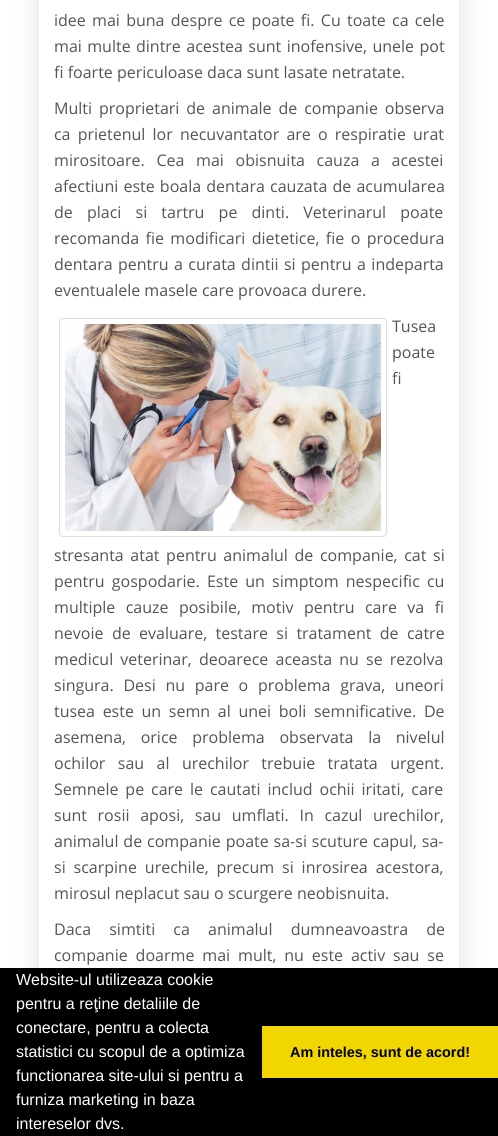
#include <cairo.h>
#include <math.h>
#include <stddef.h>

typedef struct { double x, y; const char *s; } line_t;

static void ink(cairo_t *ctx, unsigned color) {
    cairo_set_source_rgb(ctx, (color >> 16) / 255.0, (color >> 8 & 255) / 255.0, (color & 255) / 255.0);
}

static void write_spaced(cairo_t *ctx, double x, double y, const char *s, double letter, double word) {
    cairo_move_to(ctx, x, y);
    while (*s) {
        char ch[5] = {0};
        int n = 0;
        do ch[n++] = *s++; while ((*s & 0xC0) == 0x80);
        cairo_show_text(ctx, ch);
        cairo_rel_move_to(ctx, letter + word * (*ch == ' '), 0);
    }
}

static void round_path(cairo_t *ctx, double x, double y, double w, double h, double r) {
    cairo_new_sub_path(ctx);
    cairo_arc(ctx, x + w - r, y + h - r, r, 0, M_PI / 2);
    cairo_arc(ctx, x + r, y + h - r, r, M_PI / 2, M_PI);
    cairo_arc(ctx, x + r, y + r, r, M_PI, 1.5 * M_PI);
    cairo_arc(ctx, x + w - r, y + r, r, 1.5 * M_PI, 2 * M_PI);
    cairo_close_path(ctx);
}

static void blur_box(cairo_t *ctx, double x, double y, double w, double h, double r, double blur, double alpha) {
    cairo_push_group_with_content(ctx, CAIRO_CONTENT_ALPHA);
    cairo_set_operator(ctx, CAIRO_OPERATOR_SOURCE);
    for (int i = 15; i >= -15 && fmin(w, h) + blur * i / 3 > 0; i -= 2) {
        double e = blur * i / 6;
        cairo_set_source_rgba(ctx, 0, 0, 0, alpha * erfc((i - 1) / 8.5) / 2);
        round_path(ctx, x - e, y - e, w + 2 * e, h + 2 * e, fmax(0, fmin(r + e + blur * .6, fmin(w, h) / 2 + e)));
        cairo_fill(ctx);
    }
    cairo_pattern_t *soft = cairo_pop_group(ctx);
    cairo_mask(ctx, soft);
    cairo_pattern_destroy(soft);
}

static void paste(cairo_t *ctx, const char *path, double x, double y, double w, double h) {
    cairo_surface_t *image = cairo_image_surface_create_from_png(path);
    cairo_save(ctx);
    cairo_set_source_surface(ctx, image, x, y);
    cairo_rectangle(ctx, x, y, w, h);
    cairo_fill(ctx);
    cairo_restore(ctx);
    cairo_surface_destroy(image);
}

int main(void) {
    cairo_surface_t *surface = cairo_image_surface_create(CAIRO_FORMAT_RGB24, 498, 1136);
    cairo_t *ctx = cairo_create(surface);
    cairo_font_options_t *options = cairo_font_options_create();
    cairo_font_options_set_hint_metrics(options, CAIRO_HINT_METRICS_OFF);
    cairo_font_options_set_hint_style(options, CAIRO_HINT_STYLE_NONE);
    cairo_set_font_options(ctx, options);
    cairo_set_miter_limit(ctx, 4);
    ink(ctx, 0xFFFFFF);
    cairo_paint(ctx);
    cairo_save(ctx);
    cairo_set_fill_rule(ctx, CAIRO_FILL_RULE_EVEN_ODD);
    cairo_new_path(ctx);
    cairo_move_to(ctx, 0, 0);
    cairo_line_to(ctx, 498, 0);
    cairo_line_to(ctx, 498, 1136);
    cairo_line_to(ctx, 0, 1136);
    cairo_close_path(ctx);
    cairo_move_to(ctx, 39, -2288);
    cairo_line_to(ctx, 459, -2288);
    cairo_line_to(ctx, 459, 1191);
    cairo_line_to(ctx, 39, 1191);
    cairo_close_path(ctx);
    cairo_clip(ctx);
    ink(ctx, 0xDDDDDD);
    blur_box(ctx, 39, -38, 420, 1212, 0, 12.5, 1);
    cairo_restore(ctx);
    cairo_select_font_face(ctx, "Open Sans", CAIRO_FONT_SLANT_NORMAL, CAIRO_FONT_WEIGHT_NORMAL);
    cairo_set_font_size(ctx, 16);
    ink(ctx, 0x555555);
    write_spaced(ctx, 54, 26, "idee mai buna despre ce poate fi. Cu toate ca cele", 0, 2.1);
    write_spaced(ctx, 54, 52, "mai multe dintre acestea sunt inofensive, unele pot", 0, 1.25);
    cairo_move_to(ctx, 54, 78);
    cairo_show_text(ctx, "fi foarte periculoase daca sunt lasate netratate.");
    write_spaced(ctx, 54, 114, "Multi proprietari de animale de companie observa", 0, 2.75);
    write_spaced(ctx, 54, 140, "ca prietenul lor necuvantator are o respiratie urat", 0, 3);
    write_spaced(ctx, 54, 166, "mirositoare. Cea mai obisnuita cauza a acestei", 0, 7.5);
    write_spaced(ctx, 54, 192, "afectiuni este boala dentara cauzata de acumularea", 0, 1);
    write_spaced(ctx, 54, 218, "de placi si tartru pe dinti. Veterinarul poate", 0, 10);
    write_spaced(ctx, 54, 244, "recomanda fie modificari dietetice, fie o procedura", 0, 2.25);
    write_spaced(ctx, 54, 270, "dentara pentru a curata dintii si pentru a indeparta", 0, 1.25);
    cairo_move_to(ctx, 54, 296);
    cairo_show_text(ctx, "eventualele masele care provoaca durere.");
    round_path(ctx, 59.5, 318.5, 327, 218, 3.5);
    ink(ctx, 0xDDDDDD);
    cairo_set_line_width(ctx, 1);
    cairo_stroke(ctx);
    paste(ctx, "media/1.png", 65, 324, 316, 207);
    ink(ctx, 0x555555);
    {
        static const line_t items[] = {
            {392, 332, "Tusea"},
            {392, 358, "poate"},
            {392, 384, "fi"},
        };
        for (size_t i = 0; i < sizeof items / sizeof *items; i++) {
            cairo_move_to(ctx, items[i].x, items[i].y);
            cairo_show_text(ctx, items[i].s);
        }
    }
    write_spaced(ctx, 54, 561, "stresanta atat pentru animalul de companie, cat si", 0, 2.5);
    write_spaced(ctx, 54, 587, "pentru gospodarie. Este un simptom nespecific cu", 0, 3);
    write_spaced(ctx, 54, 613, "multiple cauze posibile, motiv pentru care va fi", 0, 6.25);
    write_spaced(ctx, 54, 639, "nevoie de evaluare, testare si tratament de catre", 0, 4.25);
    write_spaced(ctx, 54, 665, "medicul veterinar, deoarece aceasta nu se rezolva", 0, 3);
    write_spaced(ctx, 54, 691, "singura. Desi nu pare o problema grava, uneori", 0, 5.5);
    write_spaced(ctx, 54, 717, "tusea este un semn al unei boli semnificative. De", 0, 3.5);
    write_spaced(ctx, 54, 743, "asemena, orice problema observata la nivelul", 0, 10.5);
    write_spaced(ctx, 54, 769, "ochilor sau al urechilor trebuie tratata urgent.", 0, 8.25);
    write_spaced(ctx, 54, 795, "Semnele pe care le cautati includ ochii iritati, care", 0, 2.75);
    write_spaced(ctx, 54, 821, "sunt rosii aposi, sau umflati. In cazul urechilor,", 0, 6.5);
    write_spaced(ctx, 54, 847, "animalul de companie poate sa-si scuture capul, sa-", 0, 0.75);
    write_spaced(ctx, 54, 873, "si scarpine urechile, precum si inrosirea acestora,", 0, 3.75);
    cairo_move_to(ctx, 54, 899);
    cairo_show_text(ctx, "mirosul neplacut sau o scurgere neobisnuita.");
    write_spaced(ctx, 54, 935, "Daca simtiti ca animalul dumneavoastra de", 0, 14);
    write_spaced(ctx, 54, 961, "companie doarme mai mult, nu este activ sau se", 0, 3.75);
    ink(ctx, 0x000000);
    cairo_rectangle(ctx, 0, 968, 498, 168);
    cairo_fill(ctx);
    cairo_select_font_face(ctx, "Liberation Sans", CAIRO_FONT_SLANT_NORMAL, CAIRO_FONT_WEIGHT_NORMAL);
    ink(ctx, 0xFFFFFF);
    {
        static const line_t items[] = {
            {16, 985, "Website-ul utilizeaza cookie"},
            {16, 1009, "pentru a reţine detaliile de"},
            {16, 1033, "conectare, pentru a colecta"},
            {16, 1057, "statistici cu scopul de a optimiza"},
            {16, 1081, "functionarea site-ului si pentru a"},
            {16, 1105, "furniza marketing in baza"},
            {16, 1129, "intereselor dvs."},
        };
        for (size_t i = 0; i < sizeof items / sizeof *items; i++) {
            cairo_move_to(ctx, items[i].x, items[i].y);
            cairo_show_text(ctx, items[i].s);
        }
    }
    ink(ctx, 0xF1D600);
    cairo_rectangle(ctx, 262, 1026, 236, 52);
    cairo_fill(ctx);
    cairo_select_font_face(ctx, "Liberation Sans", CAIRO_FONT_SLANT_NORMAL, CAIRO_FONT_WEIGHT_BOLD);
    cairo_set_font_size(ctx, 14.4);
    ink(ctx, 0x000000);
    cairo_move_to(ctx, 290, 1057);
    cairo_show_text(ctx, "Am inteles, sunt de acord!");
    cairo_surface_write_to_png(surface, "image.png");
    cairo_font_options_destroy(options);
    cairo_destroy(ctx);
    cairo_surface_destroy(surface);
    return 0;
}
